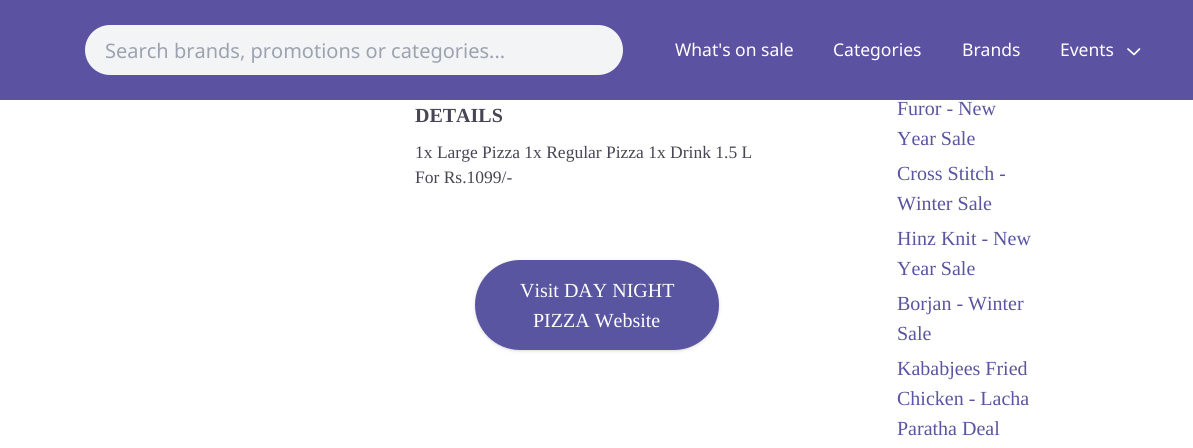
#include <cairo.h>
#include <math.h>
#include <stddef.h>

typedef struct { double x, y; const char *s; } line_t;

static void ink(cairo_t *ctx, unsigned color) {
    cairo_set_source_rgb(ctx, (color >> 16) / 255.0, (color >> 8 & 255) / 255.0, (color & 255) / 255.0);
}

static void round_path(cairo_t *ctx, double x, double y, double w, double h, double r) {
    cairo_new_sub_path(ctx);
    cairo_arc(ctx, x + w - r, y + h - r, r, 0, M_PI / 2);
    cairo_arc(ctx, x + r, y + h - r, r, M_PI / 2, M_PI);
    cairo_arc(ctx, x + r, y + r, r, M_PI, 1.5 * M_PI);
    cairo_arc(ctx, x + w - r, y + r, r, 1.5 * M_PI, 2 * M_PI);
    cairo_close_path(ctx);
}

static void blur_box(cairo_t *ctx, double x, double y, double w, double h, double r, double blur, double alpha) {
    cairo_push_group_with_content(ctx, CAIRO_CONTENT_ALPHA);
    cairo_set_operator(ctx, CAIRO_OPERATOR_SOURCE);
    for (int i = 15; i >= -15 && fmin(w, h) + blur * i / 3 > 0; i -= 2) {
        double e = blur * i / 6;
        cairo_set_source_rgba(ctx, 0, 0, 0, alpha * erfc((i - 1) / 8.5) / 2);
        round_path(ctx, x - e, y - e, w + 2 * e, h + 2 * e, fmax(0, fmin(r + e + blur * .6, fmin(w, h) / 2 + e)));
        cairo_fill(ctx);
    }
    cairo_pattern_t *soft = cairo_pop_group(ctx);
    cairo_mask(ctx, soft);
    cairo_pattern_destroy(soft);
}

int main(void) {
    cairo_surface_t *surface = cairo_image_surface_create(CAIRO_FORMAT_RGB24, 1193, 448);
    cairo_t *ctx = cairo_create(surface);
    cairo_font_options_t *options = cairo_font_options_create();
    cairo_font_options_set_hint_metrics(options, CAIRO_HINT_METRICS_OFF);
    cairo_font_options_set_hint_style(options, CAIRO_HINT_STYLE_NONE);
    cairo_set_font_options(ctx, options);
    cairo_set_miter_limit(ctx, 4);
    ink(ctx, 0xFFFFFF);
    cairo_paint(ctx);
    ink(ctx, 0x5B52A2);
    cairo_rectangle(ctx, 0, 0, 1193, 100);
    cairo_fill(ctx);
    ink(ctx, 0xF3F4F6);
    round_path(ctx, 85, 25, 538, 50, 25);
    cairo_fill(ctx);
    cairo_select_font_face(ctx, "Noto Sans", CAIRO_FONT_SLANT_NORMAL, CAIRO_FONT_WEIGHT_NORMAL);
    cairo_set_font_size(ctx, 20);
    ink(ctx, 0x9CA3AF);
    cairo_move_to(ctx, 105, 58);
    cairo_show_text(ctx, "Search brands, promotions or categories...");
    cairo_set_font_size(ctx, 17.5);
    ink(ctx, 0xFFFFFF);
    {
        static const line_t items[] = {
            {675, 56, "What's on sale"},
            {833, 56, "Categories"},
            {962, 56, "Brands"},
            {1060, 56, "Events"},
        };
        for (size_t i = 0; i < sizeof items / sizeof *items; i++) {
            cairo_move_to(ctx, items[i].x, items[i].y);
            cairo_show_text(ctx, items[i].s);
        }
    }
    cairo_new_path(ctx);
    cairo_move_to(ctx, 1139.5, 49);
    cairo_line_to(ctx, 1134, 54.5);
    cairo_line_to(ctx, 1128, 49);
    cairo_set_line_width(ctx, 1.7);
    cairo_set_line_cap(ctx, CAIRO_LINE_CAP_ROUND);
    cairo_set_line_join(ctx, CAIRO_LINE_JOIN_ROUND);
    cairo_stroke(ctx);
    cairo_select_font_face(ctx, "Liberation Serif", CAIRO_FONT_SLANT_NORMAL, CAIRO_FONT_WEIGHT_BOLD);
    cairo_set_font_size(ctx, 20);
    ink(ctx, 0x484554);
    cairo_move_to(ctx, 415, 122);
    cairo_show_text(ctx, "DETAILS");
    cairo_select_font_face(ctx, "Liberation Serif", CAIRO_FONT_SLANT_NORMAL, CAIRO_FONT_WEIGHT_NORMAL);
    cairo_set_font_size(ctx, 17.5);
    cairo_move_to(ctx, 415, 158);
    cairo_show_text(ctx, "1x Large Pizza 1x Regular Pizza 1x Drink 1.5 L");
    cairo_move_to(ctx, 415, 183);
    cairo_show_text(ctx, "For Rs.1099/-");
    ink(ctx, 0x000000);
    blur_box(ctx, 475, 261, 244, 90, 45, 1, 0.06);
    blur_box(ctx, 475, 261, 244, 90, 45, 2, 0.1);
    ink(ctx, 0x5A55A0);
    round_path(ctx, 475, 260, 244, 90, 45);
    cairo_fill(ctx);
    cairo_set_font_size(ctx, 20);
    ink(ctx, 0xFFFFFF);
    cairo_move_to(ctx, 520, 297);
    cairo_show_text(ctx, "Visit DAY NIGHT");
    cairo_move_to(ctx, 533, 327);
    cairo_show_text(ctx, "PIZZA Website");
    ink(ctx, 0x5A55A0);
    {
        static const line_t items[] = {
            {897, 115, "Furor - New"},
            {897, 145, "Year Sale"},
            {897, 180, "Cross Stitch -"},
            {897, 210, "Winter Sale"},
            {897, 245, "Hinz Knit - New"},
            {897, 275, "Year Sale"},
            {897, 310, "Borjan - Winter"},
            {897, 340, "Sale"},
            {897, 375, "Kababjees Fried"},
            {897, 405, "Chicken - Lacha"},
            {897, 435, "Paratha Deal"},
        };
        for (size_t i = 0; i < sizeof items / sizeof *items; i++) {
            cairo_move_to(ctx, items[i].x, items[i].y);
            cairo_show_text(ctx, items[i].s);
        }
    }
    cairo_surface_write_to_png(surface, "image.png");
    cairo_font_options_destroy(options);
    cairo_destroy(ctx);
    cairo_surface_destroy(surface);
    return 0;
}
